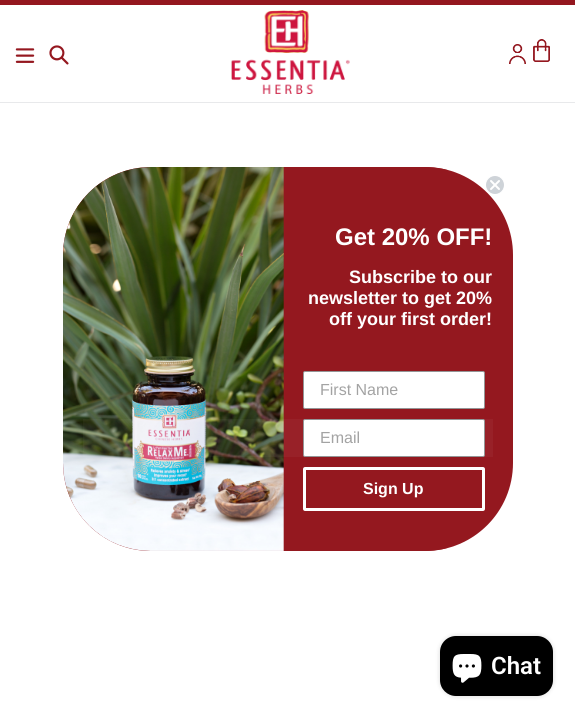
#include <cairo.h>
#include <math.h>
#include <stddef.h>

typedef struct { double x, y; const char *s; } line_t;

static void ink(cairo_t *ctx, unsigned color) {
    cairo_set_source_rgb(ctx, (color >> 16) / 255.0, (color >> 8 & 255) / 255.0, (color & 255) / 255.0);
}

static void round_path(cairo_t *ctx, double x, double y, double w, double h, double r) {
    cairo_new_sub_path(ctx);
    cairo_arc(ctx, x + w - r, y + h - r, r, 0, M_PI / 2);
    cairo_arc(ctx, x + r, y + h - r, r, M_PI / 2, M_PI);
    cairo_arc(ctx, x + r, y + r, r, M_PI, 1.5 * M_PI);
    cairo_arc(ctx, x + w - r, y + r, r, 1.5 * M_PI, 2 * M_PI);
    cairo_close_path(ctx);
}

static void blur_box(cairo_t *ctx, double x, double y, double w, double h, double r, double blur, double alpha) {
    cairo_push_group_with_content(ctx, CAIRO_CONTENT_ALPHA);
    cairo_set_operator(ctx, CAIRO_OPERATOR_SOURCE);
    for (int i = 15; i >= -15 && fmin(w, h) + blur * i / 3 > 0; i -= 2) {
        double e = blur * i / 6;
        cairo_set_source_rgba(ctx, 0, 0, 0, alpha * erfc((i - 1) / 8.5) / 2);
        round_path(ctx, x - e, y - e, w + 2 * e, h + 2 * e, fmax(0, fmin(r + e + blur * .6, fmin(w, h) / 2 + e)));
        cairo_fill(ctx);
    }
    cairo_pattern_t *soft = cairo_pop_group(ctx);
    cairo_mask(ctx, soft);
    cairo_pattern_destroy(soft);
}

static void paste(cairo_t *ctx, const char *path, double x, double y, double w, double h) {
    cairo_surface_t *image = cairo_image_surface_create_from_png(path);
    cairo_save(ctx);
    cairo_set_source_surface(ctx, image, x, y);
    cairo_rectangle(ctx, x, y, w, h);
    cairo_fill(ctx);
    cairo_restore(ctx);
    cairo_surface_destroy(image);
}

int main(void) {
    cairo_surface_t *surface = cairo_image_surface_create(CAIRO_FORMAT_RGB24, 575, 717);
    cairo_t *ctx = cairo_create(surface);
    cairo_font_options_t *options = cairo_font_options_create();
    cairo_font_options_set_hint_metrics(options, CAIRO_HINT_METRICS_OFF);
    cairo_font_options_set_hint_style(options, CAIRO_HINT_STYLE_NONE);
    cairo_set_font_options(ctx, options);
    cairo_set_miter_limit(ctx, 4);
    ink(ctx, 0xFFFFFF);
    cairo_paint(ctx);
    ink(ctx, 0xE8E9EB);
    cairo_rectangle(ctx, 0, 102, 575, 1);
    cairo_fill(ctx);
    ink(ctx, 0x94171F);
    cairo_rectangle(ctx, 0, 0, 575, 5);
    cairo_fill(ctx);
    paste(ctx, "media/1.png", 15, 48, 20, 15);
    paste(ctx, "media/2.png", 49, 45, 20, 20);
    paste(ctx, "media/3.png", 231, 10, 119, 84);
    paste(ctx, "media/4.png", 509, 44, 17, 20);
    paste(ctx, "media/5.png", 533, 39, 17, 23);
    ink(ctx, 0x94181F);
    round_path(ctx, 63, 167, 450, 384, 88);
    cairo_fill(ctx);
    paste(ctx, "media/6.png", 486, 176, 18, 18);
    paste(ctx, "media/7.png", 63, 167, 384, 384);
    cairo_select_font_face(ctx, "Liberation Sans", CAIRO_FONT_SLANT_NORMAL, CAIRO_FONT_WEIGHT_BOLD);
    cairo_set_font_size(ctx, 24);
    ink(ctx, 0xFFFFFF);
    cairo_move_to(ctx, 335, 245);
    cairo_show_text(ctx, "Get 20% OFF!");
    cairo_set_font_size(ctx, 18);
    {
        static const line_t items[] = {
            {349, 283, "Subscribe to our"},
            {308, 304, "newsletter to get 20%"},
            {329, 325, "off your first order!"},
        };
        for (size_t i = 0; i < sizeof items / sizeof *items; i++) {
            cairo_move_to(ctx, items[i].x, items[i].y);
            cairo_show_text(ctx, items[i].s);
        }
    }
    round_path(ctx, 303.5, 371.5, 181, 37, 1.5);
    cairo_fill_preserve(ctx);
    ink(ctx, 0x949596);
    cairo_set_line_width(ctx, 1);
    cairo_stroke(ctx);
    cairo_select_font_face(ctx, "Liberation Sans", CAIRO_FONT_SLANT_NORMAL, CAIRO_FONT_WEIGHT_NORMAL);
    cairo_set_font_size(ctx, 16);
    ink(ctx, 0xA3A3A3);
    cairo_move_to(ctx, 320, 395);
    cairo_show_text(ctx, "First Name");
    cairo_set_source_rgba(ctx, 1, 1, 1, 0.04);
    cairo_rectangle(ctx, 83, 419, 410, 38);
    cairo_fill(ctx);
    ink(ctx, 0xFFFFFF);
    round_path(ctx, 303.5, 419.5, 181, 37, 1.5);
    cairo_fill_preserve(ctx);
    ink(ctx, 0x949596);
    cairo_stroke(ctx);
    ink(ctx, 0xA3A3A3);
    cairo_move_to(ctx, 320, 443);
    cairo_show_text(ctx, "Email");
    round_path(ctx, 304.5, 468.5, 179, 41, 0.5);
    ink(ctx, 0xFFFFFF);
    cairo_set_line_width(ctx, 3);
    cairo_stroke(ctx);
    cairo_select_font_face(ctx, "Liberation Sans", CAIRO_FONT_SLANT_NORMAL, CAIRO_FONT_WEIGHT_BOLD);
    cairo_move_to(ctx, 363, 494);
    cairo_show_text(ctx, "Sign Up");
    ink(ctx, 0x000000);
    blur_box(ctx, 440, 636, 113, 60, 16, 2.5, 0.15);
    ink(ctx, 0x000000);
    round_path(ctx, 440, 636, 113, 60, 16);
    cairo_fill(ctx);
    paste(ctx, "media/8.png", 452, 654, 30, 29);
    cairo_select_font_face(ctx, "Roboto SemiBold", CAIRO_FONT_SLANT_NORMAL, CAIRO_FONT_WEIGHT_NORMAL);
    cairo_set_font_size(ctx, 24);
    ink(ctx, 0xFFFFFF);
    cairo_move_to(ctx, 491, 674);
    cairo_show_text(ctx, "Chat");
    cairo_surface_write_to_png(surface, "image.png");
    cairo_font_options_destroy(options);
    cairo_destroy(ctx);
    cairo_surface_destroy(surface);
    return 0;
}
